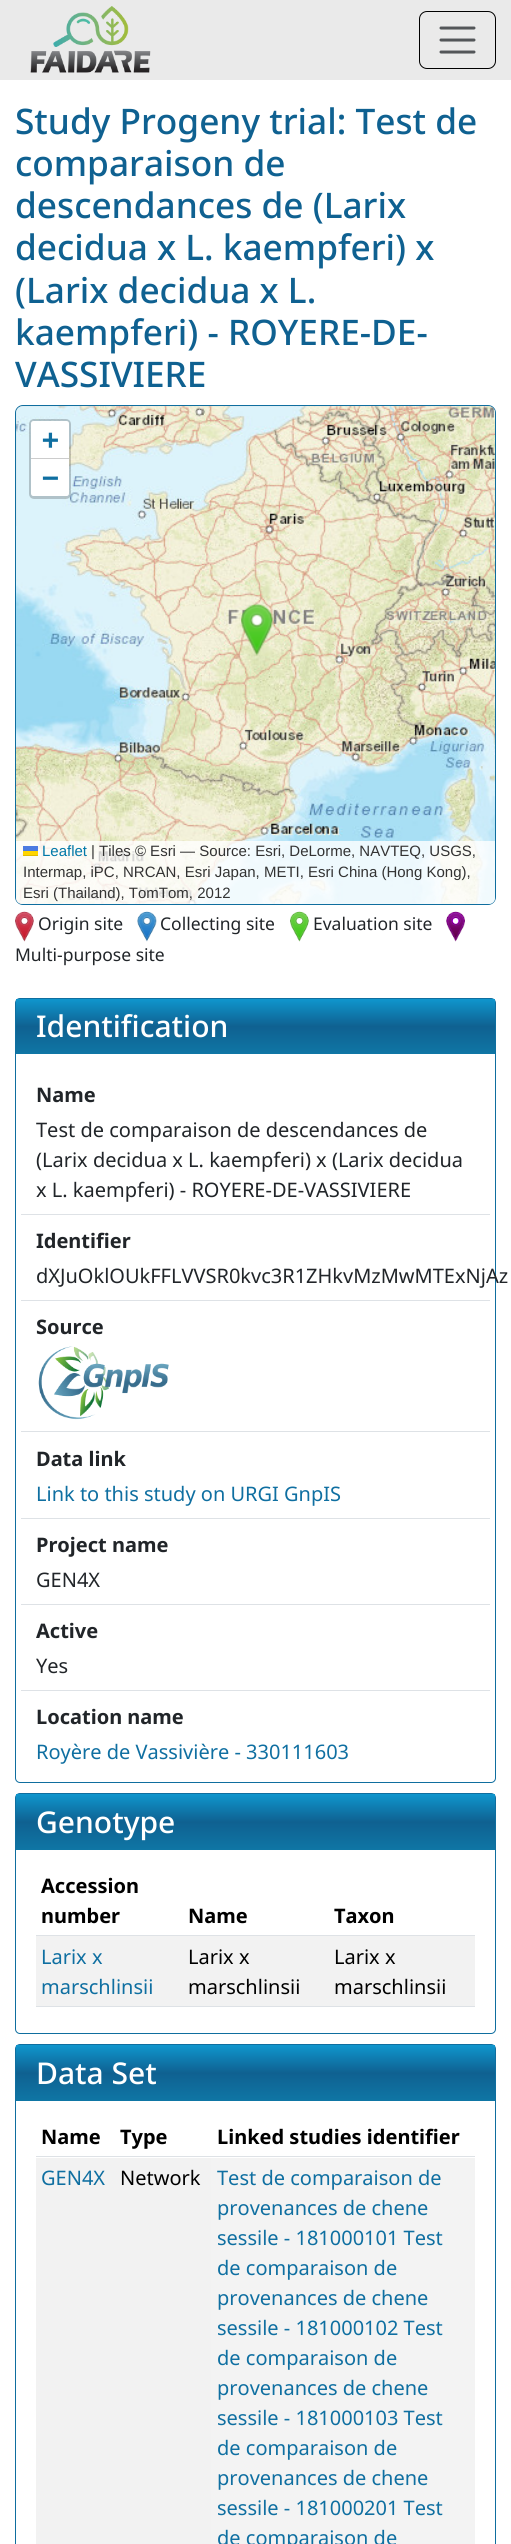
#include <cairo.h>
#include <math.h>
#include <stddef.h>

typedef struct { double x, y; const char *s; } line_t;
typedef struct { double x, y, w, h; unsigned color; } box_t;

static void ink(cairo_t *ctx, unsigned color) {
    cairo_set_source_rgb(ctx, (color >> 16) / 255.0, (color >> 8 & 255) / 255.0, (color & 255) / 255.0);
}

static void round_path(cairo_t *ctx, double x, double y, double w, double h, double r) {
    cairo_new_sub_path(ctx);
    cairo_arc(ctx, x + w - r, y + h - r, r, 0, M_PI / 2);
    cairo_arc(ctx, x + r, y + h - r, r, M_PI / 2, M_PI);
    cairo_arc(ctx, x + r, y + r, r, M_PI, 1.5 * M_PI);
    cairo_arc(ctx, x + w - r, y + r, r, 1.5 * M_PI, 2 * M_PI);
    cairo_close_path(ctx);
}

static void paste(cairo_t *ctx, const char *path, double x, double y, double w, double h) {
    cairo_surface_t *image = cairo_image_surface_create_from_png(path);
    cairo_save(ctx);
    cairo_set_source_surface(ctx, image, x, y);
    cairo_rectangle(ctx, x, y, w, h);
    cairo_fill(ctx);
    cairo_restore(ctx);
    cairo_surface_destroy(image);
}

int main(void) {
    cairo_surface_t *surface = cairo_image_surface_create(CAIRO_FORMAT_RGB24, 511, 2544);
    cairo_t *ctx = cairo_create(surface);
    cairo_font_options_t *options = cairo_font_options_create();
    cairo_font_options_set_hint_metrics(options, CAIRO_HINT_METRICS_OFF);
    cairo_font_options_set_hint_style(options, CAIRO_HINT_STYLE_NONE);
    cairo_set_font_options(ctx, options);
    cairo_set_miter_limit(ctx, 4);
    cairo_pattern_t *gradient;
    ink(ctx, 0xFFFFFF);
    cairo_paint(ctx);
    ink(ctx, 0xEAEAEA);
    cairo_rectangle(ctx, 0, 0, 511, 80);
    cairo_fill(ctx);
    paste(ctx, "media/1.png", 30, 6, 121, 67);
    round_path(ctx, 419.5, 11.5, 76, 57, 7.5);
    ink(ctx, 0x000000);
    cairo_set_line_width(ctx, 1);
    cairo_stroke(ctx);
    cairo_new_path(ctx);
    cairo_move_to(ctx, 441, 28);
    cairo_line_to(ctx, 474, 28);
    cairo_move_to(ctx, 441, 40);
    cairo_line_to(ctx, 474, 40);
    cairo_move_to(ctx, 441, 52);
    cairo_line_to(ctx, 474, 52);
    ink(ctx, 0x535659);
    cairo_set_line_width(ctx, 3);
    cairo_set_line_cap(ctx, CAIRO_LINE_CAP_ROUND);
    cairo_stroke(ctx);
    cairo_select_font_face(ctx, "Noto Sans Medium", CAIRO_FONT_SLANT_NORMAL, CAIRO_FONT_WEIGHT_NORMAL);
    cairo_set_font_size(ctx, 35.2);
    ink(ctx, 0x0F6191);
    {
        static const line_t items[] = {
            {15, 134, "Study Progeny trial: Test de"},
            {15, 176, "comparaison de"},
            {15, 218, "descendances de (Larix"},
            {15, 260, "decidua x L. kaempferi) x"},
            {15, 303, "(Larix decidua x L."},
            {15, 345, "kaempferi) - ROYERE-DE-"},
            {15, 387, "VASSIVIERE"},
        };
        for (size_t i = 0; i < sizeof items / sizeof *items; i++) {
            cairo_move_to(ctx, items[i].x, items[i].y);
            cairo_show_text(ctx, items[i].s);
        }
    }
    ink(ctx, 0xDDDDDD);
    round_path(ctx, 15.5, 405.5, 480, 499, 7.5);
    cairo_fill_preserve(ctx);
    ink(ctx, 0x0F6E9F);
    cairo_set_line_width(ctx, 1);
    cairo_set_line_cap(ctx, CAIRO_LINE_CAP_BUTT);
    cairo_stroke(ctx);
    paste(ctx, "media/4.png", 16, 526, 186, 321);
    paste(ctx, "media/5.png", 202, 526, 293, 320);
    paste(ctx, "media/2.png", 16, 406, 187, 121);
    paste(ctx, "media/3.png", 202, 406, 293, 121);
    paste(ctx, "media/6.png", 16, 846, 187, 58);
    paste(ctx, "media/7.png", 202, 846, 293, 58);
    paste(ctx, "media/8.png", 241, 603, 33, 53);
    round_path(ctx, 30.5, 420.5, 39, 77, 3.5);
    cairo_set_source_rgba(ctx, 0, 0, 0, 0.2);
    cairo_set_line_width(ctx, 3);
    cairo_stroke(ctx);
    ink(ctx, 0xFFFFFF);
    cairo_new_path(ctx);
    cairo_move_to(ctx, 33.5, 421);
    cairo_line_to(ctx, 66.5, 421);
    cairo_curve_to(ctx, 68, 421, 69, 422, 69, 423.5);
    cairo_line_to(ctx, 69, 459);
    cairo_line_to(ctx, 31, 459);
    cairo_line_to(ctx, 31, 423.5);
    cairo_curve_to(ctx, 31, 422, 32, 421, 33.5, 421);
    cairo_close_path(ctx);
    cairo_fill(ctx);
    ink(ctx, 0xCCCCCC);
    cairo_rectangle(ctx, 31, 458, 38, 1);
    cairo_fill(ctx);
    cairo_select_font_face(ctx, "DejaVu Sans Mono", CAIRO_FONT_SLANT_NORMAL, CAIRO_FONT_WEIGHT_BOLD);
    cairo_set_font_size(ctx, 28);
    ink(ctx, 0x0F6FA1);
    cairo_move_to(ctx, 42, 449);
    cairo_show_text(ctx, "+");
    ink(ctx, 0xFFFFFF);
    cairo_new_path(ctx);
    cairo_move_to(ctx, 31, 459);
    cairo_line_to(ctx, 69, 459);
    cairo_line_to(ctx, 69, 493.5);
    cairo_curve_to(ctx, 69, 495, 68, 496, 66.5, 496);
    cairo_line_to(ctx, 33.5, 496);
    cairo_curve_to(ctx, 32, 496, 31, 495, 31, 493.5);
    cairo_close_path(ctx);
    cairo_fill(ctx);
    ink(ctx, 0x0F6FA1);
    cairo_move_to(ctx, 42, 487);
    cairo_show_text(ctx, "−");
    cairo_set_source_rgba(ctx, 1, 1, 1, 0.8);
    cairo_new_path(ctx);
    cairo_move_to(ctx, 16, 841);
    cairo_line_to(ctx, 495, 841);
    cairo_line_to(ctx, 495, 898);
    cairo_curve_to(ctx, 495, 901.5, 492.5, 904, 489, 904);
    cairo_line_to(ctx, 22, 904);
    cairo_curve_to(ctx, 18.5, 904, 16, 901.5, 16, 898);
    cairo_close_path(ctx);
    cairo_fill(ctx);
    cairo_select_font_face(ctx, "Liberation Sans", CAIRO_FONT_SLANT_NORMAL, CAIRO_FONT_WEIGHT_NORMAL);
    cairo_set_font_size(ctx, 15);
    ink(ctx, 0x0078A8);
    cairo_move_to(ctx, 42, 856);
    cairo_show_text(ctx, "Leaflet");
    {
        static const box_t items[] = {
            {23, 846, 15, 5, 0x4C7BE1},
            {23, 851, 15, 4, 0xFFD500},
            {23, 855, 15, 1, 0xE0BC00},
        };
        for (size_t i = 0; i < sizeof items / sizeof *items; i++) {
            ink(ctx, items[i].color);
            cairo_rectangle(ctx, items[i].x, items[i].y, items[i].w, items[i].h);
            cairo_fill(ctx);
        }
    }
    ink(ctx, 0x333333);
    {
        static const line_t items[] = {
            {91, 856, "| Tiles © Esri — Source: Esri, DeLorme, NAVTEQ, USGS,"},
            {23, 877, "Intermap, iPC, NRCAN, Esri Japan, METI, Esri China (Hong Kong),"},
            {23, 898, "Esri (Thailand), TomTom, 2012"},
        };
        for (size_t i = 0; i < sizeof items / sizeof *items; i++) {
            cairo_move_to(ctx, items[i].x, items[i].y);
            cairo_show_text(ctx, items[i].s);
        }
    }
    paste(ctx, "media/9.png", 15, 911, 19, 31);
    cairo_select_font_face(ctx, "Noto Sans", CAIRO_FONT_SLANT_NORMAL, CAIRO_FONT_WEIGHT_NORMAL);
    cairo_set_font_size(ctx, 17.5);
    ink(ctx, 0x212529);
    cairo_move_to(ctx, 38, 930);
    cairo_show_text(ctx, "Origin site");
    paste(ctx, "media/10.png", 137, 911, 20, 31);
    cairo_move_to(ctx, 160, 930);
    cairo_show_text(ctx, "Collecting site");
    paste(ctx, "media/11.png", 290, 911, 19, 31);
    cairo_move_to(ctx, 313, 930);
    cairo_show_text(ctx, "Evaluation site");
    paste(ctx, "media/12.png", 446, 911, 19, 31);
    cairo_move_to(ctx, 15, 961);
    cairo_show_text(ctx, "Multi-purpose site");
    round_path(ctx, 15.5, 998.5, 480, 784, 4.5);
    ink(ctx, 0x0F6E9F);
    cairo_set_line_width(ctx, 1);
    cairo_stroke(ctx);
    gradient = cairo_pattern_create_linear(256, 999, 256, 1054);
    cairo_pattern_add_color_stop_rgba(gradient, 0, 0.059, 0.588, 0.804, 1);
    cairo_pattern_add_color_stop_rgba(gradient, 0.5, 0.059, 0.38, 0.569, 1);
    cairo_pattern_add_color_stop_rgba(gradient, 1, 0.059, 0.463, 0.647, 1);
    cairo_set_source(ctx, gradient);
    cairo_pattern_destroy(gradient);
    cairo_rectangle(ctx, 16, 999, 479, 55);
    cairo_fill(ctx);
    cairo_select_font_face(ctx, "Noto Sans Medium", CAIRO_FONT_SLANT_NORMAL, CAIRO_FONT_WEIGHT_NORMAL);
    cairo_set_font_size(ctx, 30);
    ink(ctx, 0xFFFFFF);
    cairo_move_to(ctx, 36, 1037);
    cairo_show_text(ctx, "Identification");
    cairo_select_font_face(ctx, "Noto Sans", CAIRO_FONT_SLANT_NORMAL, CAIRO_FONT_WEIGHT_BOLD);
    cairo_set_font_size(ctx, 20);
    ink(ctx, 0x212529);
    cairo_move_to(ctx, 36, 1102);
    cairo_show_text(ctx, "Name");
    cairo_select_font_face(ctx, "Noto Sans", CAIRO_FONT_SLANT_NORMAL, CAIRO_FONT_WEIGHT_NORMAL);
    {
        static const line_t items[] = {
            {36, 1137, "Test de comparaison de descendances de"},
            {36, 1167, "(Larix decidua x L. kaempferi) x (Larix decidua"},
            {36, 1197, "x L. kaempferi) - ROYERE-DE-VASSIVIERE"},
        };
        for (size_t i = 0; i < sizeof items / sizeof *items; i++) {
            cairo_move_to(ctx, items[i].x, items[i].y);
            cairo_show_text(ctx, items[i].s);
        }
    }
    ink(ctx, 0xDEE2E6);
    cairo_rectangle(ctx, 21, 1214, 469, 1);
    cairo_fill(ctx);
    cairo_select_font_face(ctx, "Noto Sans", CAIRO_FONT_SLANT_NORMAL, CAIRO_FONT_WEIGHT_BOLD);
    ink(ctx, 0x212529);
    cairo_move_to(ctx, 36, 1248);
    cairo_show_text(ctx, "Identifier");
    cairo_select_font_face(ctx, "Noto Sans", CAIRO_FONT_SLANT_NORMAL, CAIRO_FONT_WEIGHT_NORMAL);
    cairo_move_to(ctx, 36, 1283);
    cairo_show_text(ctx, "dXJuOklOUkFFLVVSR0kvc3R1ZHkvMzMwMTExNjAz");
    ink(ctx, 0xDEE2E6);
    cairo_rectangle(ctx, 21, 1300, 469, 1);
    cairo_fill(ctx);
    cairo_select_font_face(ctx, "Noto Sans", CAIRO_FONT_SLANT_NORMAL, CAIRO_FONT_WEIGHT_BOLD);
    ink(ctx, 0x212529);
    cairo_move_to(ctx, 36, 1334);
    cairo_show_text(ctx, "Source");
    paste(ctx, "media/13.png", 38, 1346, 131, 74);
    ink(ctx, 0xDEE2E6);
    cairo_rectangle(ctx, 21, 1431, 469, 1);
    cairo_fill(ctx);
    ink(ctx, 0x212529);
    cairo_move_to(ctx, 36, 1466);
    cairo_show_text(ctx, "Data link");
    cairo_select_font_face(ctx, "Noto Sans", CAIRO_FONT_SLANT_NORMAL, CAIRO_FONT_WEIGHT_NORMAL);
    ink(ctx, 0x0F6FA1);
    cairo_move_to(ctx, 36, 1501);
    cairo_show_text(ctx, "Link to this study on URGI GnpIS");
    ink(ctx, 0xDEE2E6);
    cairo_rectangle(ctx, 21, 1518, 469, 1);
    cairo_fill(ctx);
    cairo_select_font_face(ctx, "Noto Sans", CAIRO_FONT_SLANT_NORMAL, CAIRO_FONT_WEIGHT_BOLD);
    ink(ctx, 0x212529);
    cairo_move_to(ctx, 36, 1552);
    cairo_show_text(ctx, "Project name");
    cairo_select_font_face(ctx, "Noto Sans", CAIRO_FONT_SLANT_NORMAL, CAIRO_FONT_WEIGHT_NORMAL);
    cairo_move_to(ctx, 36, 1587);
    cairo_show_text(ctx, "GEN4X");
    ink(ctx, 0xDEE2E6);
    cairo_rectangle(ctx, 21, 1604, 469, 1);
    cairo_fill(ctx);
    cairo_select_font_face(ctx, "Noto Sans", CAIRO_FONT_SLANT_NORMAL, CAIRO_FONT_WEIGHT_BOLD);
    ink(ctx, 0x212529);
    cairo_move_to(ctx, 36, 1638);
    cairo_show_text(ctx, "Active");
    cairo_select_font_face(ctx, "Noto Sans", CAIRO_FONT_SLANT_NORMAL, CAIRO_FONT_WEIGHT_NORMAL);
    cairo_move_to(ctx, 36, 1673);
    cairo_show_text(ctx, "Yes");
    ink(ctx, 0xDEE2E6);
    cairo_rectangle(ctx, 21, 1690, 469, 1);
    cairo_fill(ctx);
    cairo_select_font_face(ctx, "Noto Sans", CAIRO_FONT_SLANT_NORMAL, CAIRO_FONT_WEIGHT_BOLD);
    ink(ctx, 0x212529);
    cairo_move_to(ctx, 36, 1724);
    cairo_show_text(ctx, "Location name");
    cairo_select_font_face(ctx, "Noto Sans", CAIRO_FONT_SLANT_NORMAL, CAIRO_FONT_WEIGHT_NORMAL);
    ink(ctx, 0x0F6FA1);
    cairo_move_to(ctx, 36, 1759);
    cairo_show_text(ctx, "Royère de Vassivière - 330111603");
    round_path(ctx, 15.5, 1793.5, 480, 240, 4.5);
    ink(ctx, 0x0F6E9F);
    cairo_stroke(ctx);
    gradient = cairo_pattern_create_linear(256, 1794, 256, 1850);
    cairo_pattern_add_color_stop_rgba(gradient, 0, 0.059, 0.588, 0.804, 1);
    cairo_pattern_add_color_stop_rgba(gradient, 0.5, 0.059, 0.38, 0.569, 1);
    cairo_pattern_add_color_stop_rgba(gradient, 1, 0.059, 0.463, 0.647, 1);
    cairo_set_source(ctx, gradient);
    cairo_pattern_destroy(gradient);
    cairo_rectangle(ctx, 16, 1794, 479, 56);
    cairo_fill(ctx);
    cairo_select_font_face(ctx, "Noto Sans Medium", CAIRO_FONT_SLANT_NORMAL, CAIRO_FONT_WEIGHT_NORMAL);
    cairo_set_font_size(ctx, 30);
    ink(ctx, 0xFFFFFF);
    cairo_move_to(ctx, 36, 1833);
    cairo_show_text(ctx, "Genotype");
    cairo_select_font_face(ctx, "Noto Sans", CAIRO_FONT_SLANT_NORMAL, CAIRO_FONT_WEIGHT_BOLD);
    cairo_set_font_size(ctx, 20);
    ink(ctx, 0x000000);
    {
        static const line_t items[] = {
            {41, 1893, "Accession"},
            {41, 1923, "number"},
            {188, 1923, "Name"},
        };
        for (size_t i = 0; i < sizeof items / sizeof *items; i++) {
            cairo_move_to(ctx, items[i].x, items[i].y);
            cairo_show_text(ctx, items[i].s);
        }
    }
    ink(ctx, 0xDEE2E6);
    cairo_rectangle(ctx, 36, 1935, 439, 1);
    cairo_fill(ctx);
    ink(ctx, 0x000000);
    cairo_move_to(ctx, 334, 1923);
    cairo_show_text(ctx, "Taxon");
    ink(ctx, 0xF2F2F2);
    cairo_rectangle(ctx, 36, 1936, 439, 70);
    cairo_fill(ctx);
    cairo_select_font_face(ctx, "Noto Sans", CAIRO_FONT_SLANT_NORMAL, CAIRO_FONT_WEIGHT_NORMAL);
    ink(ctx, 0x0F6FA1);
    cairo_move_to(ctx, 41, 1964);
    cairo_show_text(ctx, "Larix x");
    cairo_move_to(ctx, 41, 1994);
    cairo_show_text(ctx, "marschlinsii");
    ink(ctx, 0x000000);
    cairo_move_to(ctx, 188, 1964);
    cairo_show_text(ctx, "Larix x");
    cairo_move_to(ctx, 188, 1994);
    cairo_show_text(ctx, "marschlinsii");
    ink(ctx, 0xDEE2E6);
    cairo_rectangle(ctx, 36, 2006, 439, 1);
    cairo_fill(ctx);
    ink(ctx, 0x000000);
    cairo_move_to(ctx, 334, 1964);
    cairo_show_text(ctx, "Larix x");
    cairo_move_to(ctx, 334, 1994);
    cairo_show_text(ctx, "marschlinsii");
    round_path(ctx, 15.5, 2044.5, 480, 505, 4.5);
    ink(ctx, 0x0F6E9F);
    cairo_stroke(ctx);
    gradient = cairo_pattern_create_linear(256, 2045, 256, 2101);
    cairo_pattern_add_color_stop_rgba(gradient, 0, 0.059, 0.588, 0.804, 1);
    cairo_pattern_add_color_stop_rgba(gradient, 0.5, 0.059, 0.38, 0.569, 1);
    cairo_pattern_add_color_stop_rgba(gradient, 1, 0.059, 0.463, 0.647, 1);
    cairo_set_source(ctx, gradient);
    cairo_pattern_destroy(gradient);
    cairo_rectangle(ctx, 16, 2045, 479, 56);
    cairo_fill(ctx);
    cairo_select_font_face(ctx, "Noto Sans Medium", CAIRO_FONT_SLANT_NORMAL, CAIRO_FONT_WEIGHT_NORMAL);
    cairo_set_font_size(ctx, 30);
    ink(ctx, 0xFFFFFF);
    cairo_move_to(ctx, 36, 2084);
    cairo_show_text(ctx, "Data Set");
    cairo_select_font_face(ctx, "Noto Sans", CAIRO_FONT_SLANT_NORMAL, CAIRO_FONT_WEIGHT_BOLD);
    cairo_set_font_size(ctx, 20);
    ink(ctx, 0x000000);
    cairo_move_to(ctx, 41, 2144);
    cairo_show_text(ctx, "Name");
    cairo_move_to(ctx, 120, 2144);
    cairo_show_text(ctx, "Type");
    ink(ctx, 0xDEE2E6);
    cairo_rectangle(ctx, 36, 2156, 439, 1);
    cairo_fill(ctx);
    ink(ctx, 0x000000);
    cairo_move_to(ctx, 217, 2144);
    cairo_show_text(ctx, "Linked studies identifier");
    ink(ctx, 0xF2F2F2);
    cairo_rectangle(ctx, 36, 2158, 175, 386);
    cairo_fill(ctx);
    cairo_select_font_face(ctx, "Noto Sans", CAIRO_FONT_SLANT_NORMAL, CAIRO_FONT_WEIGHT_NORMAL);
    ink(ctx, 0x0F6FA1);
    cairo_move_to(ctx, 41, 2185);
    cairo_show_text(ctx, "GEN4X");
    ink(ctx, 0x000000);
    cairo_move_to(ctx, 120, 2185);
    cairo_show_text(ctx, "Network");
    ink(ctx, 0xF3F3F3);
    cairo_rectangle(ctx, 211, 2158, 264, 386);
    cairo_fill(ctx);
    ink(ctx, 0x0F6FA1);
    {
        static const line_t items[] = {
            {217, 2185, "Test de comparaison de"},
            {217, 2215, "provenances de chene"},
            {217, 2245, "sessile - 181000101 Test"},
            {217, 2275, "de comparaison de"},
            {217, 2305, "provenances de chene"},
            {217, 2335, "sessile - 181000102 Test"},
            {217, 2365, "de comparaison de"},
            {217, 2395, "provenances de chene"},
            {217, 2425, "sessile - 181000103 Test"},
            {217, 2455, "de comparaison de"},
            {217, 2485, "provenances de chene"},
            {217, 2515, "sessile - 181000201 Test"},
            {217, 2545, "de comparaison de"},
        };
        for (size_t i = 0; i < sizeof items / sizeof *items; i++) {
            cairo_move_to(ctx, items[i].x, items[i].y);
            cairo_show_text(ctx, items[i].s);
        }
    }
    cairo_surface_write_to_png(surface, "image.png");
    cairo_font_options_destroy(options);
    cairo_destroy(ctx);
    cairo_surface_destroy(surface);
    return 0;
}
